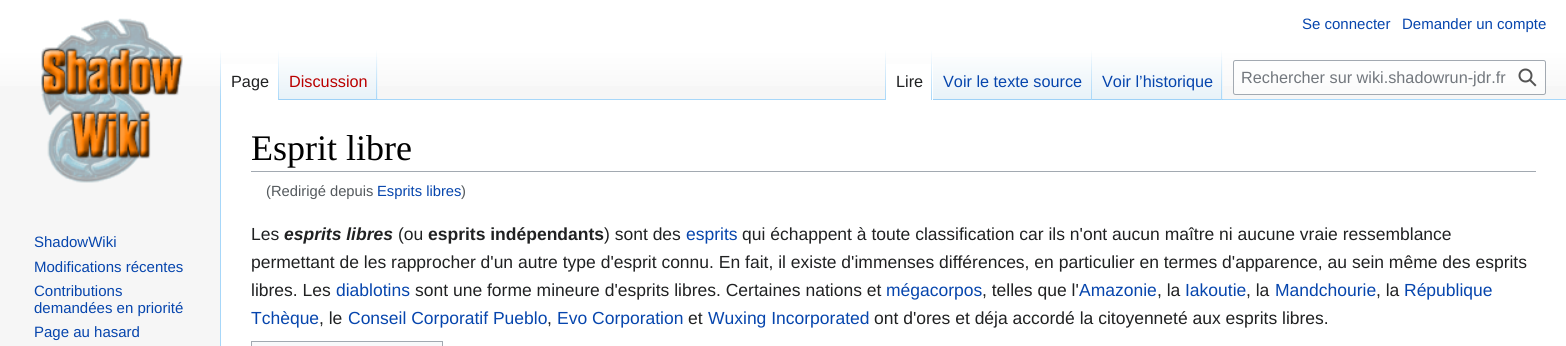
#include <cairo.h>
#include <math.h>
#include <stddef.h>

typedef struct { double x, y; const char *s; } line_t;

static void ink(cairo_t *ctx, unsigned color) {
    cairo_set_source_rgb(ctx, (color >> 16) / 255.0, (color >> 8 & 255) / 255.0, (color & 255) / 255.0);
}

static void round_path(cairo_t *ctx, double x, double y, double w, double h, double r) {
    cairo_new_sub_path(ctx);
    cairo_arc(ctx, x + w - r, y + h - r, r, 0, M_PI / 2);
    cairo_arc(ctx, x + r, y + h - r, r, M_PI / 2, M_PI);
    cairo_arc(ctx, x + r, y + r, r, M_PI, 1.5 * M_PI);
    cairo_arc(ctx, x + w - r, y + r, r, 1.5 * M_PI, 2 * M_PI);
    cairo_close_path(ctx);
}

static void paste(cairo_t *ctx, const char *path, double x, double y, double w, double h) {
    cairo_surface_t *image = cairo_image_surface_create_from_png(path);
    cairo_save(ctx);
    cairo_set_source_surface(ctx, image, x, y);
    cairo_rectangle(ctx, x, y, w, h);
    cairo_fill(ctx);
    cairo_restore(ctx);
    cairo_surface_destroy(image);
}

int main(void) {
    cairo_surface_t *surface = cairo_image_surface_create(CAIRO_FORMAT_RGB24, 1566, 346);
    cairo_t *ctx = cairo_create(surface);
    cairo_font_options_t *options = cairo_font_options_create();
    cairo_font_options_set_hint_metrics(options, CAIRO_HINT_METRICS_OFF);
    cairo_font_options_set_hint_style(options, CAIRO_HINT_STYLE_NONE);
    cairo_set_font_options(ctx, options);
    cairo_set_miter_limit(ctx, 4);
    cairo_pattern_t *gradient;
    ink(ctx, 0xF6F6F6);
    cairo_paint(ctx);
    gradient = cairo_pattern_create_linear(783, 0, 783, 100);
    cairo_pattern_add_color_stop_rgba(gradient, 0.5, 1, 1, 1, 1);
    cairo_pattern_add_color_stop_rgba(gradient, 1, 0.965, 0.965, 0.965, 1);
    cairo_set_source(ctx, gradient);
    cairo_pattern_destroy(gradient);
    cairo_rectangle(ctx, 0, 0, 1566, 86);
    cairo_fill(ctx);
    cairo_select_font_face(ctx, "Liberation Sans", CAIRO_FONT_SLANT_NORMAL, CAIRO_FONT_WEIGHT_NORMAL);
    cairo_set_font_size(ctx, 15);
    ink(ctx, 0x0645AD);
    cairo_move_to(ctx, 1302, 29);
    cairo_show_text(ctx, "Se connecter");
    cairo_move_to(ctx, 1402, 29);
    cairo_show_text(ctx, "Demander un compte");
    ink(ctx, 0xA7D7F9);
    cairo_rectangle(ctx, 220, 99, 1, 247);
    cairo_fill(ctx);
    gradient = cairo_pattern_create_linear(221, 50, 221, 100);
    cairo_pattern_add_color_stop_rgba(gradient, 0, 0.655, 0.843, 0.976, 0);
    cairo_pattern_add_color_stop_rgba(gradient, 1, 0.655, 0.843, 0.976, 1);
    cairo_set_source(ctx, gradient);
    cairo_pattern_destroy(gradient);
    cairo_rectangle(ctx, 220, 50, 1, 50);
    cairo_fill(ctx);
    ink(ctx, 0xFFFFFF);
    cairo_rectangle(ctx, 221, 64, 57, 36);
    cairo_fill(ctx);
    gradient = cairo_pattern_create_linear(278, 50, 278, 100);
    cairo_pattern_add_color_stop_rgba(gradient, 0, 1, 1, 1, 1);
    cairo_pattern_add_color_stop_rgba(gradient, 1, 0.655, 0.843, 0.976, 1);
    cairo_set_source(ctx, gradient);
    cairo_pattern_destroy(gradient);
    cairo_rectangle(ctx, 278, 50, 1, 50);
    cairo_fill(ctx);
    cairo_set_font_size(ctx, 16.25);
    ink(ctx, 0x202122);
    cairo_move_to(ctx, 231, 87);
    cairo_show_text(ctx, "Page");
    gradient = cairo_pattern_create_linear(328, 100, 328, 50);
    cairo_pattern_add_color_stop_rgba(gradient, 0, 0.467, 0.757, 0.965, 1);
    cairo_pattern_add_color_stop_rgba(gradient, 0.03, 0.91, 0.949, 0.973, 1);
    cairo_pattern_add_color_stop_rgba(gradient, 1, 1, 1, 1, 1);
    cairo_set_source(ctx, gradient);
    cairo_pattern_destroy(gradient);
    cairo_rectangle(ctx, 279, 57, 99, 43);
    cairo_fill(ctx);
    gradient = cairo_pattern_create_linear(377, 50, 377, 100);
    cairo_pattern_add_color_stop_rgba(gradient, 0, 0.655, 0.843, 0.976, 0);
    cairo_pattern_add_color_stop_rgba(gradient, 1, 0.655, 0.843, 0.976, 1);
    cairo_set_source(ctx, gradient);
    cairo_pattern_destroy(gradient);
    cairo_rectangle(ctx, 376, 50, 1, 50);
    cairo_fill(ctx);
    ink(ctx, 0xBA0000);
    cairo_move_to(ctx, 289, 87);
    cairo_show_text(ctx, "Discussion");
    ink(ctx, 0xA7D7F9);
    cairo_rectangle(ctx, 378, 99, 1188, 1);
    cairo_fill(ctx);
    gradient = cairo_pattern_create_linear(886, 50, 886, 100);
    cairo_pattern_add_color_stop_rgba(gradient, 0, 0.655, 0.843, 0.976, 0);
    cairo_pattern_add_color_stop_rgba(gradient, 1, 0.655, 0.843, 0.976, 1);
    cairo_set_source(ctx, gradient);
    cairo_pattern_destroy(gradient);
    cairo_rectangle(ctx, 885, 50, 1, 50);
    cairo_fill(ctx);
    ink(ctx, 0xFFFFFF);
    cairo_rectangle(ctx, 886, 64, 47, 36);
    cairo_fill(ctx);
    gradient = cairo_pattern_create_linear(932, 50, 932, 100);
    cairo_pattern_add_color_stop_rgba(gradient, 0, 1, 1, 1, 1);
    cairo_pattern_add_color_stop_rgba(gradient, 1, 0.655, 0.843, 0.976, 1);
    cairo_set_source(ctx, gradient);
    cairo_pattern_destroy(gradient);
    cairo_rectangle(ctx, 931, 50, 1, 50);
    cairo_fill(ctx);
    ink(ctx, 0x202122);
    cairo_move_to(ctx, 896, 87);
    cairo_show_text(ctx, "Lire");
    gradient = cairo_pattern_create_linear(1013, 100, 1013, 50);
    cairo_pattern_add_color_stop_rgba(gradient, 0, 0.467, 0.757, 0.965, 1);
    cairo_pattern_add_color_stop_rgba(gradient, 0.03, 0.91, 0.949, 0.973, 1);
    cairo_pattern_add_color_stop_rgba(gradient, 1, 1, 1, 1, 1);
    cairo_set_source(ctx, gradient);
    cairo_pattern_destroy(gradient);
    cairo_rectangle(ctx, 933, 57, 160, 43);
    cairo_fill(ctx);
    gradient = cairo_pattern_create_linear(1092, 50, 1092, 100);
    cairo_pattern_add_color_stop_rgba(gradient, 0, 0.655, 0.843, 0.976, 0);
    cairo_pattern_add_color_stop_rgba(gradient, 1, 0.655, 0.843, 0.976, 1);
    cairo_set_source(ctx, gradient);
    cairo_pattern_destroy(gradient);
    cairo_rectangle(ctx, 1091, 50, 1, 50);
    cairo_fill(ctx);
    ink(ctx, 0x0645AD);
    cairo_move_to(ctx, 943, 87);
    cairo_show_text(ctx, "Voir le texte source");
    gradient = cairo_pattern_create_linear(1158, 100, 1158, 50);
    cairo_pattern_add_color_stop_rgba(gradient, 0, 0.467, 0.757, 0.965, 1);
    cairo_pattern_add_color_stop_rgba(gradient, 0.03, 0.91, 0.949, 0.973, 1);
    cairo_pattern_add_color_stop_rgba(gradient, 1, 1, 1, 1, 1);
    cairo_set_source(ctx, gradient);
    cairo_pattern_destroy(gradient);
    cairo_rectangle(ctx, 1093, 57, 130, 43);
    cairo_fill(ctx);
    gradient = cairo_pattern_create_linear(1222, 50, 1222, 100);
    cairo_pattern_add_color_stop_rgba(gradient, 0, 0.655, 0.843, 0.976, 0);
    cairo_pattern_add_color_stop_rgba(gradient, 1, 0.655, 0.843, 0.976, 1);
    cairo_set_source(ctx, gradient);
    cairo_pattern_destroy(gradient);
    cairo_rectangle(ctx, 1221, 50, 1, 50);
    cairo_fill(ctx);
    ink(ctx, 0x0645AD);
    cairo_move_to(ctx, 1102, 87);
    cairo_show_text(ctx, "Voir l’historique");
    cairo_set_source_rgba(ctx, 1, 1, 1, 0.5);
    round_path(ctx, 1233.5, 60.5, 312, 34, 2);
    cairo_fill_preserve(ctx);
    ink(ctx, 0xA2A9B1);
    cairo_set_line_width(ctx, 1);
    cairo_stroke(ctx);
    ink(ctx, 0x72777D);
    cairo_move_to(ctx, 1241, 83);
    cairo_show_text(ctx, "Rechercher sur wiki.shadowrun-jdr.fr");
    paste(ctx, "media/1.png", 1518, 68, 19, 19);
    paste(ctx, "media/2.png", 41, 18, 142, 165);
    cairo_set_font_size(ctx, 15);
    ink(ctx, 0x0645AD);
    {
        static const line_t items[] = {
            {34, 247, "ShadowWiki"},
            {34, 272, "Modifications récentes"},
            {34, 296, "Contributions"},
            {34, 313, "demandées en priorité"},
            {34, 337, "Page au hasard"},
        };
        for (size_t i = 0; i < sizeof items / sizeof *items; i++) {
            cairo_move_to(ctx, items[i].x, items[i].y);
            cairo_show_text(ctx, items[i].s);
        }
    }
    ink(ctx, 0xFFFFFF);
    cairo_rectangle(ctx, 221, 100, 1345, 246);
    cairo_fill(ctx);
    ink(ctx, 0xA2A9B1);
    cairo_rectangle(ctx, 251, 171, 1285, 1);
    cairo_fill(ctx);
    cairo_select_font_face(ctx, "Liberation Serif", CAIRO_FONT_SLANT_NORMAL, CAIRO_FONT_WEIGHT_NORMAL);
    cairo_set_font_size(ctx, 36);
    ink(ctx, 0x000000);
    cairo_move_to(ctx, 251, 160);
    cairo_show_text(ctx, "Esprit libre");
    cairo_select_font_face(ctx, "Liberation Sans", CAIRO_FONT_SLANT_NORMAL, CAIRO_FONT_WEIGHT_NORMAL);
    cairo_set_font_size(ctx, 14.75);
    ink(ctx, 0x54595D);
    cairo_move_to(ctx, 266, 196);
    cairo_show_text(ctx, "(Redirigé depuis");
    ink(ctx, 0x0645AD);
    cairo_move_to(ctx, 377, 196);
    cairo_show_text(ctx, "Esprits libres");
    ink(ctx, 0x54595D);
    cairo_move_to(ctx, 461, 196);
    cairo_show_text(ctx, ")");
    cairo_set_font_size(ctx, 17.5);
    ink(ctx, 0x202122);
    cairo_move_to(ctx, 251, 240);
    cairo_show_text(ctx, "Les");
    cairo_select_font_face(ctx, "Liberation Sans", CAIRO_FONT_SLANT_ITALIC, CAIRO_FONT_WEIGHT_BOLD);
    cairo_move_to(ctx, 284, 240);
    cairo_show_text(ctx, "esprits libres");
    cairo_select_font_face(ctx, "Liberation Sans", CAIRO_FONT_SLANT_NORMAL, CAIRO_FONT_WEIGHT_NORMAL);
    cairo_move_to(ctx, 398, 240);
    cairo_show_text(ctx, "(ou");
    cairo_select_font_face(ctx, "Liberation Sans", CAIRO_FONT_SLANT_NORMAL, CAIRO_FONT_WEIGHT_BOLD);
    cairo_move_to(ctx, 428, 240);
    cairo_show_text(ctx, "esprits indépendants");
    cairo_select_font_face(ctx, "Liberation Sans", CAIRO_FONT_SLANT_NORMAL, CAIRO_FONT_WEIGHT_NORMAL);
    cairo_move_to(ctx, 604, 240);
    cairo_show_text(ctx, ") sont des");
    ink(ctx, 0x0645AD);
    cairo_move_to(ctx, 686, 240);
    cairo_show_text(ctx, "esprits");
    ink(ctx, 0x202122);
    {
        static const line_t items[] = {
            {742, 240, "qui échappent à toute classification car ils n'ont aucun maître ni aucune vraie ressemblance"},
            {251, 268, "permettant de les rapprocher d'un autre type d'esprit connu. En fait, il existe d'immenses différences, en particulier en termes d'apparence, au sein même des esprits"},
            {251, 296, "libres. Les"},
        };
        for (size_t i = 0; i < sizeof items / sizeof *items; i++) {
            cairo_move_to(ctx, items[i].x, items[i].y);
            cairo_show_text(ctx, items[i].s);
        }
    }
    ink(ctx, 0x0645AD);
    cairo_move_to(ctx, 336, 296);
    cairo_show_text(ctx, "diablotins");
    ink(ctx, 0x202122);
    cairo_move_to(ctx, 415, 296);
    cairo_show_text(ctx, "sont une forme mineure d'esprits libres. Certaines nations et");
    ink(ctx, 0x0645AD);
    cairo_move_to(ctx, 886, 296);
    cairo_show_text(ctx, "mégacorpos");
    ink(ctx, 0x202122);
    cairo_move_to(ctx, 982, 296);
    cairo_show_text(ctx, ", telles que l'");
    ink(ctx, 0x0645AD);
    cairo_move_to(ctx, 1079, 296);
    cairo_show_text(ctx, "Amazonie");
    ink(ctx, 0x202122);
    cairo_move_to(ctx, 1157, 296);
    cairo_show_text(ctx, ", la");
    ink(ctx, 0x0645AD);
    cairo_move_to(ctx, 1185, 296);
    cairo_show_text(ctx, "Iakoutie");
    ink(ctx, 0x202122);
    cairo_move_to(ctx, 1246, 296);
    cairo_show_text(ctx, ", la");
    ink(ctx, 0x0645AD);
    cairo_move_to(ctx, 1275, 296);
    cairo_show_text(ctx, "Mandchourie");
    ink(ctx, 0x202122);
    cairo_move_to(ctx, 1376, 296);
    cairo_show_text(ctx, ", la");
    ink(ctx, 0x0645AD);
    cairo_move_to(ctx, 1404, 296);
    cairo_show_text(ctx, "République");
    cairo_move_to(ctx, 251, 324);
    cairo_show_text(ctx, "Tchèque");
    ink(ctx, 0x202122);
    cairo_move_to(ctx, 319, 324);
    cairo_show_text(ctx, ", le");
    ink(ctx, 0x0645AD);
    cairo_move_to(ctx, 348, 324);
    cairo_show_text(ctx, "Conseil Corporatif Pueblo");
    ink(ctx, 0x202122);
    cairo_move_to(ctx, 547, 324);
    cairo_show_text(ctx, ",");
    ink(ctx, 0x0645AD);
    cairo_move_to(ctx, 557, 324);
    cairo_show_text(ctx, "Evo Corporation");
    ink(ctx, 0x202122);
    cairo_move_to(ctx, 688, 324);
    cairo_show_text(ctx, "et");
    ink(ctx, 0x0645AD);
    cairo_move_to(ctx, 708, 324);
    cairo_show_text(ctx, "Wuxing Incorporated");
    ink(ctx, 0x202122);
    cairo_move_to(ctx, 874, 324);
    cairo_show_text(ctx, "ont d'ores et déja accordé la citoyenneté aux esprits libres.");
    ink(ctx, 0xF8F9FA);
    cairo_rectangle(ctx, 251.5, 341.5, 191, 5);
    cairo_fill_preserve(ctx);
    ink(ctx, 0xA2A9B1);
    cairo_stroke(ctx);
    cairo_surface_write_to_png(surface, "image.png");
    cairo_font_options_destroy(options);
    cairo_destroy(ctx);
    cairo_surface_destroy(surface);
    return 0;
}
